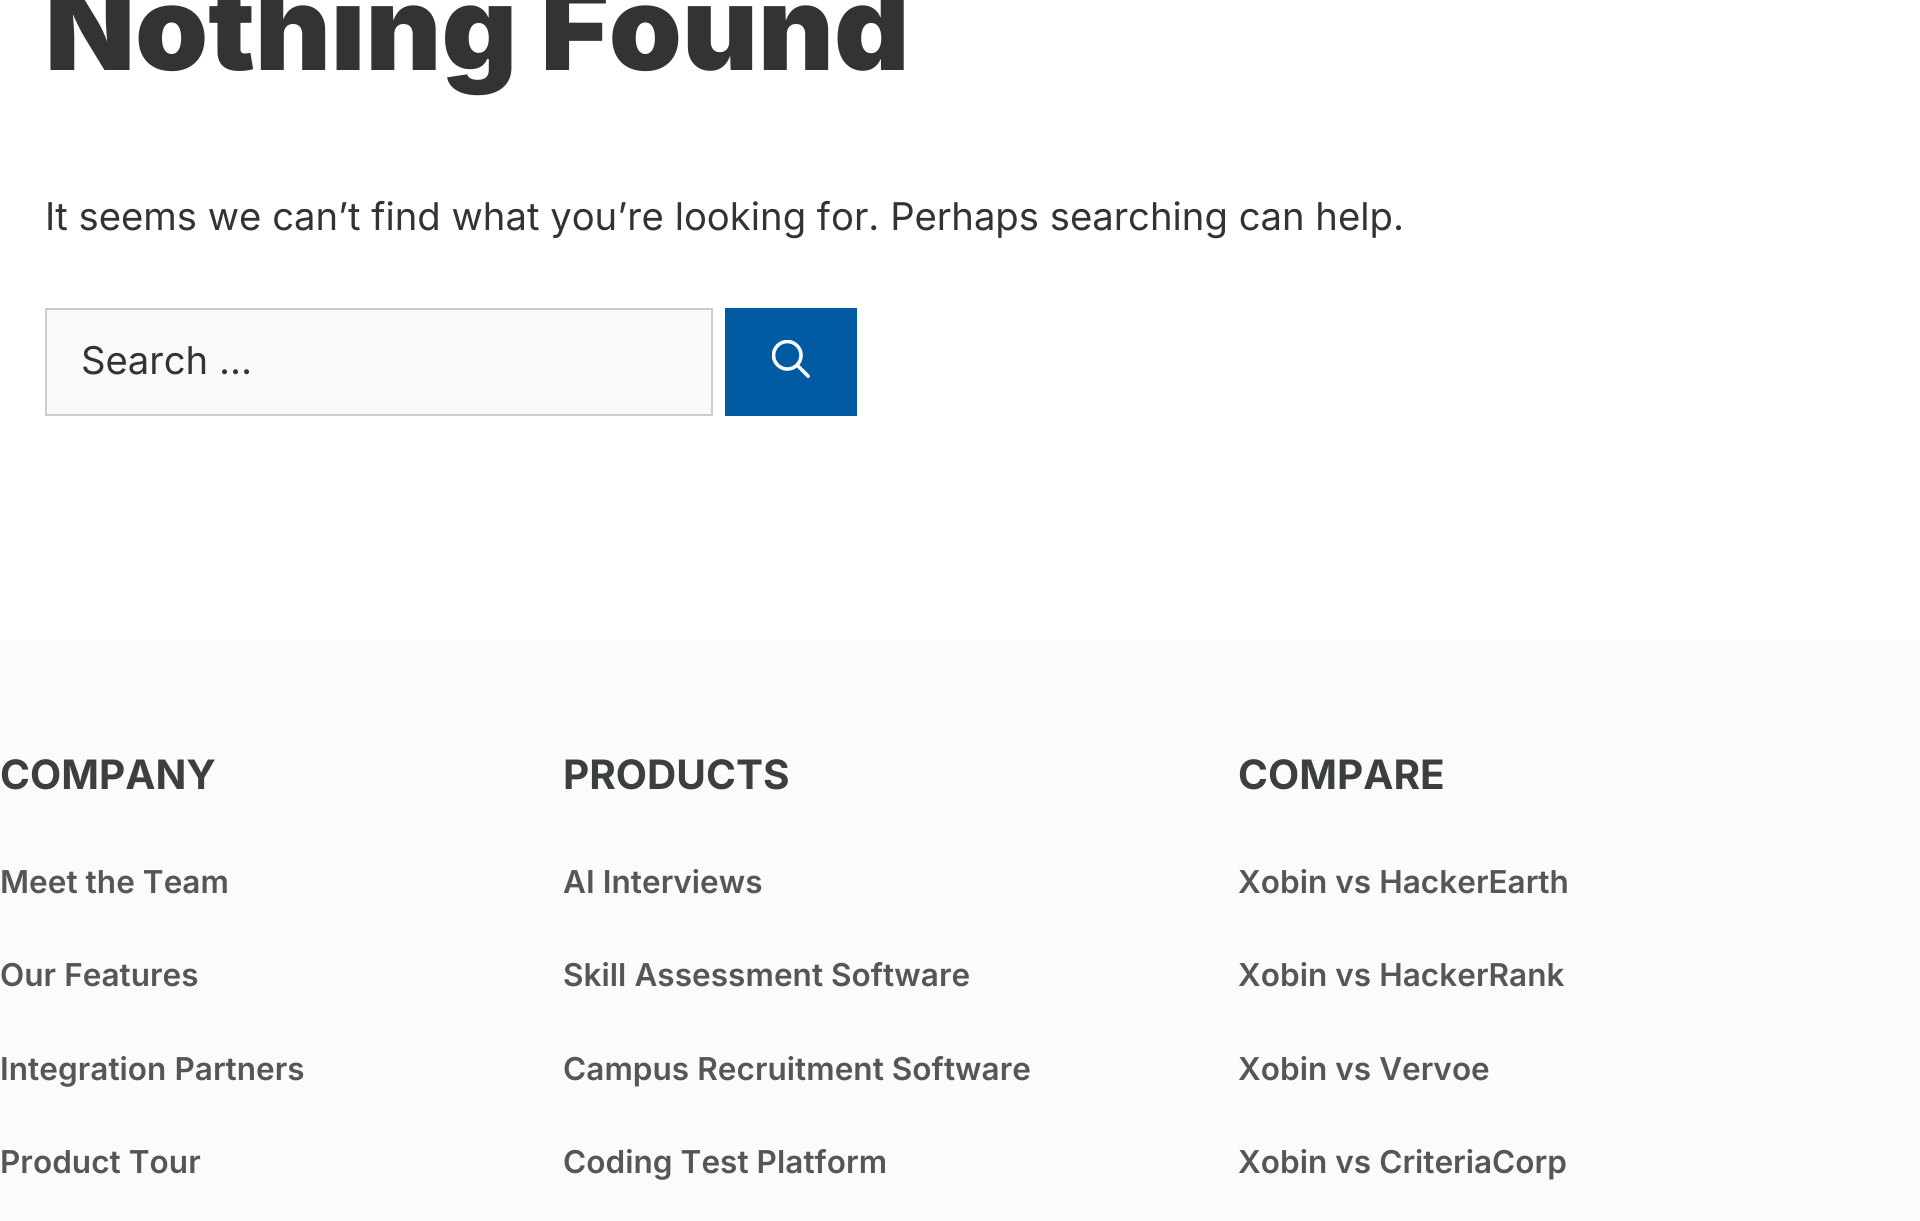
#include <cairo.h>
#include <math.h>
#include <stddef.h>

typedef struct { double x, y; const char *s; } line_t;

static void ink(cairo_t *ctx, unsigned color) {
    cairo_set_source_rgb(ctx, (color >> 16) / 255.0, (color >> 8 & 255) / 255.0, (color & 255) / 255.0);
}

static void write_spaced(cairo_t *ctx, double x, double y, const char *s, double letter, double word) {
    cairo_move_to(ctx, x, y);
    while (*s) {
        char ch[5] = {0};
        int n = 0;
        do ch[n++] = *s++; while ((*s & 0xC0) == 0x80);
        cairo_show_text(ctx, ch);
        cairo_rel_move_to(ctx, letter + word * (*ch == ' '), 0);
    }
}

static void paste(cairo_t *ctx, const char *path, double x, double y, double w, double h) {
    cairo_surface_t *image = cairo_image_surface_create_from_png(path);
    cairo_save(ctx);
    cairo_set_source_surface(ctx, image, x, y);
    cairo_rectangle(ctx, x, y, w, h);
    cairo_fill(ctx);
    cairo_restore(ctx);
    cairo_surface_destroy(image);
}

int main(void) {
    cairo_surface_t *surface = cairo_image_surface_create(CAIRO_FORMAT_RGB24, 1920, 1221);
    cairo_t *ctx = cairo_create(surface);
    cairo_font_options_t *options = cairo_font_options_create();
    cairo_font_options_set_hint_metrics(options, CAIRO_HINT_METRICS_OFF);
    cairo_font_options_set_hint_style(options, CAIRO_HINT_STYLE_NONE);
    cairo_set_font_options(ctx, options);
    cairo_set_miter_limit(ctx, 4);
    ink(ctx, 0xFFFFFF);
    cairo_paint(ctx);
    cairo_select_font_face(ctx, "Inter Black", CAIRO_FONT_SLANT_NORMAL, CAIRO_FONT_WEIGHT_NORMAL);
    cairo_set_font_size(ctx, 117);
    ink(ctx, 0x333333);
    cairo_move_to(ctx, 45, 70);
    cairo_show_text(ctx, "Nothing Found");
    cairo_select_font_face(ctx, "Inter", CAIRO_FONT_SLANT_NORMAL, CAIRO_FONT_WEIGHT_NORMAL);
    cairo_set_font_size(ctx, 38.25);
    cairo_move_to(ctx, 45, 230);
    cairo_show_text(ctx, "It seems we can’t find what you’re looking for. Perhaps searching can help.");
    ink(ctx, 0xFAFAFA);
    cairo_rectangle(ctx, 46, 309, 666, 106);
    cairo_fill_preserve(ctx);
    ink(ctx, 0xCCCCCC);
    cairo_stroke(ctx);
    ink(ctx, 0x333333);
    cairo_move_to(ctx, 81, 374);
    cairo_show_text(ctx, "Search …");
    ink(ctx, 0x005BA2);
    cairo_rectangle(ctx, 725, 308, 132, 108);
    cairo_fill(ctx);
    paste(ctx, "media/1.png", 772, 340, 38, 38);
    ink(ctx, 0xFBFBFB);
    cairo_rectangle(ctx, 0, 641, 1920, 580);
    cairo_fill(ctx);
    cairo_select_font_face(ctx, "Inter", CAIRO_FONT_SLANT_NORMAL, CAIRO_FONT_WEIGHT_BOLD);
    cairo_set_font_size(ctx, 40.5);
    ink(ctx, 0x3C403D);
    cairo_move_to(ctx, 0, 789);
    cairo_show_text(ctx, "COMPANY");
    cairo_select_font_face(ctx, "Inter SemiBold", CAIRO_FONT_SLANT_NORMAL, CAIRO_FONT_WEIGHT_NORMAL);
    cairo_set_font_size(ctx, 31.5);
    ink(ctx, 0x565656);
    {
        static const line_t items[] = {
            {0, 893, "Meet the Team"},
            {0, 986, "Our Features"},
            {0, 1080, "Integration Partners"},
            {0, 1173, "Product Tour"},
        };
        for (size_t i = 0; i < sizeof items / sizeof *items; i++) {
            write_spaced(ctx, items[i].x, items[i].y, items[i].s, 0.05, 0);
        }
    }
    cairo_select_font_face(ctx, "Inter", CAIRO_FONT_SLANT_NORMAL, CAIRO_FONT_WEIGHT_BOLD);
    cairo_set_font_size(ctx, 40.5);
    ink(ctx, 0x3C403D);
    cairo_move_to(ctx, 563, 789);
    cairo_show_text(ctx, "PRODUCTS");
    cairo_select_font_face(ctx, "Inter SemiBold", CAIRO_FONT_SLANT_NORMAL, CAIRO_FONT_WEIGHT_NORMAL);
    cairo_set_font_size(ctx, 31.5);
    ink(ctx, 0x565656);
    {
        static const line_t items[] = {
            {563, 893, "AI Interviews"},
            {563, 986, "Skill Assessment Software"},
            {563, 1080, "Campus Recruitment Software"},
            {563, 1173, "Coding Test Platform"},
        };
        for (size_t i = 0; i < sizeof items / sizeof *items; i++) {
            write_spaced(ctx, items[i].x, items[i].y, items[i].s, 0.05, 0);
        }
    }
    cairo_select_font_face(ctx, "Inter", CAIRO_FONT_SLANT_NORMAL, CAIRO_FONT_WEIGHT_BOLD);
    cairo_set_font_size(ctx, 40.5);
    ink(ctx, 0x3C403D);
    cairo_move_to(ctx, 1238, 789);
    cairo_show_text(ctx, "COMPARE");
    cairo_select_font_face(ctx, "Inter SemiBold", CAIRO_FONT_SLANT_NORMAL, CAIRO_FONT_WEIGHT_NORMAL);
    cairo_set_font_size(ctx, 31.5);
    ink(ctx, 0x565656);
    {
        static const line_t items[] = {
            {1238, 893, "Xobin vs HackerEarth"},
            {1238, 986, "Xobin vs HackerRank"},
            {1238, 1080, "Xobin vs Vervoe"},
            {1238, 1173, "Xobin vs CriteriaCorp"},
        };
        for (size_t i = 0; i < sizeof items / sizeof *items; i++) {
            write_spaced(ctx, items[i].x, items[i].y, items[i].s, 0.05, 0);
        }
    }
    cairo_surface_write_to_png(surface, "image.png");
    cairo_font_options_destroy(options);
    cairo_destroy(ctx);
    cairo_surface_destroy(surface);
    return 0;
}
